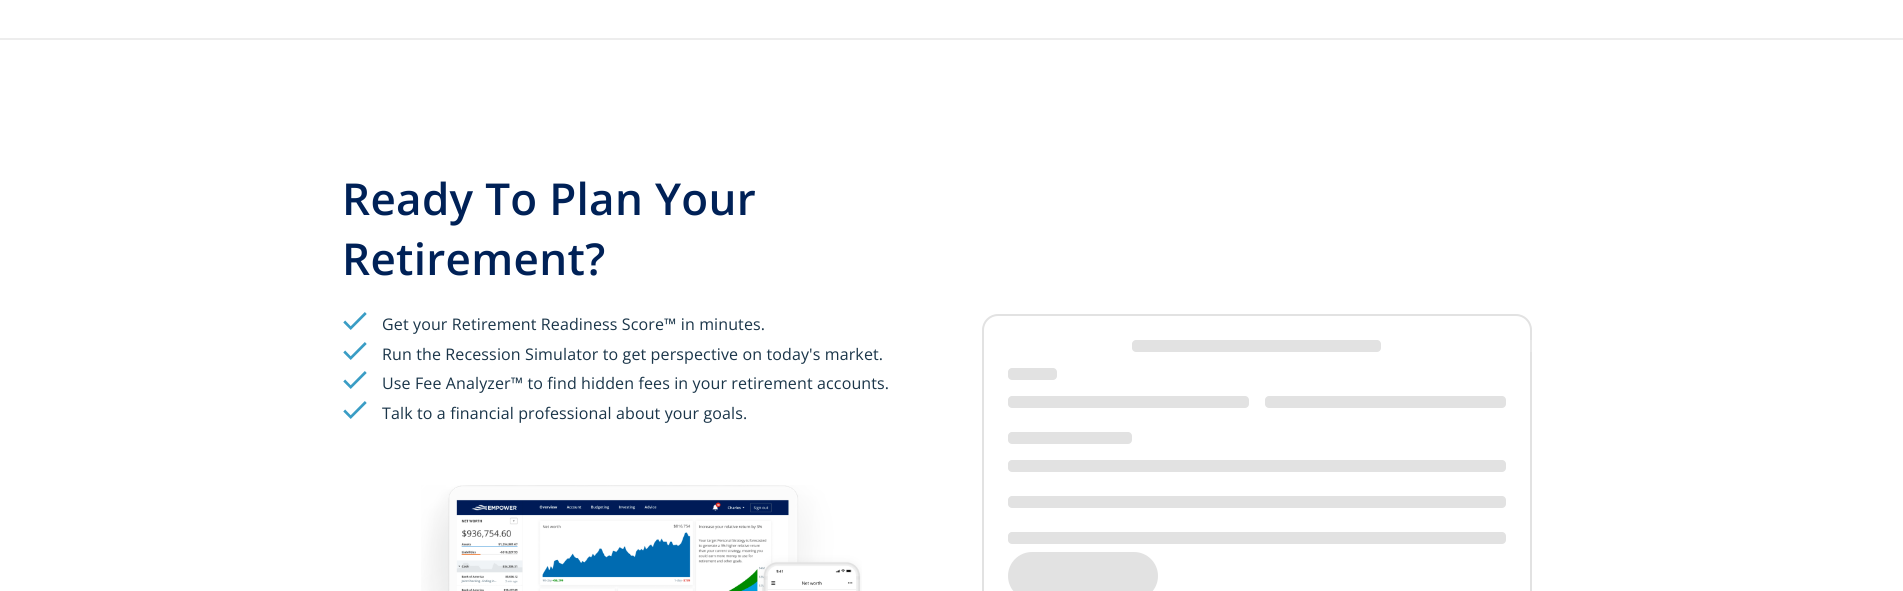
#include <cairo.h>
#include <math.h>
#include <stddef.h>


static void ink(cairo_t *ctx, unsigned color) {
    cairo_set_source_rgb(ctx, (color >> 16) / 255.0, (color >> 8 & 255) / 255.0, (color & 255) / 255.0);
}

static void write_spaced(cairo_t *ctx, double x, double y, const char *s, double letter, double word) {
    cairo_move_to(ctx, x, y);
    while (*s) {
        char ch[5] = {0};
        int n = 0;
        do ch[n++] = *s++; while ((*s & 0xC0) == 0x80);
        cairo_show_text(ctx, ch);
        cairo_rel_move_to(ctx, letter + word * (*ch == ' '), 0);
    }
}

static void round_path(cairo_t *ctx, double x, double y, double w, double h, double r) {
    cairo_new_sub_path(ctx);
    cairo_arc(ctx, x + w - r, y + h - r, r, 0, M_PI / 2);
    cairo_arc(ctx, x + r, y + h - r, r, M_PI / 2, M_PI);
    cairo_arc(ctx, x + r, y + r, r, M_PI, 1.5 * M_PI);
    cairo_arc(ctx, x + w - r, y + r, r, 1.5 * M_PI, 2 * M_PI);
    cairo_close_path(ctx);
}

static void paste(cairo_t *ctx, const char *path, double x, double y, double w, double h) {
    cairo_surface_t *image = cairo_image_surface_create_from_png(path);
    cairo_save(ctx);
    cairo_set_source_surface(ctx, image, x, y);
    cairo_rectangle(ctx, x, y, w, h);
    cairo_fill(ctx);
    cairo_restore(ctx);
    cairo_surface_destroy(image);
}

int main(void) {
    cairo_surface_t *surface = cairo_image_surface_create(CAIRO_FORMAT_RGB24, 1903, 591);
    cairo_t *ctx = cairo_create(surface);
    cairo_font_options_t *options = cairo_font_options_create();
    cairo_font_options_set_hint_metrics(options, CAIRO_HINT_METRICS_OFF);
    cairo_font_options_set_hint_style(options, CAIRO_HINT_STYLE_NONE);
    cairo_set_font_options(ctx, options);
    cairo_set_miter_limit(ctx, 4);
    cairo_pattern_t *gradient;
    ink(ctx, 0xFFFFFF);
    cairo_paint(ctx);
    ink(ctx, 0xEDEDED);
    cairo_rectangle(ctx, 0, 38, 1903, 2);
    cairo_fill(ctx);
    cairo_select_font_face(ctx, "Open Sans SemiBold", CAIRO_FONT_SLANT_NORMAL, CAIRO_FONT_WEIGHT_NORMAL);
    cairo_set_font_size(ctx, 44);
    ink(ctx, 0x002157);
    write_spaced(ctx, 342, 215, "Ready To Plan Your", 0.3, 0);
    write_spaced(ctx, 342, 275, "Retirement?", 0.3, 0);
    paste(ctx, "media/1.png", 343, 312, 24, 18);
    cairo_select_font_face(ctx, "Open Sans", CAIRO_FONT_SLANT_NORMAL, CAIRO_FONT_WEIGHT_NORMAL);
    cairo_set_font_size(ctx, 16);
    ink(ctx, 0x1A3549);
    write_spaced(ctx, 382, 330, "Get your Retirement Readiness Score™ in minutes.", 0.13, 0);
    paste(ctx, "media/1.png", 343, 342, 24, 18);
    write_spaced(ctx, 382, 360, "Run the Recession Simulator to get perspective on today's market.", 0.13, 0);
    paste(ctx, "media/1.png", 343, 371, 24, 18);
    write_spaced(ctx, 382, 389, "Use Fee Analyzer™ to find hidden fees in your retirement accounts.", 0.13, 0);
    paste(ctx, "media/1.png", 343, 401, 24, 18);
    write_spaced(ctx, 382, 419, "Talk to a financial professional about your goals.", 0.13, 0);
    paste(ctx, "media/2.png", 421, 485, 441, 106);
    round_path(ctx, 983, 315, 548, 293, 15);
    ink(ctx, 0xE2E2E2);
    cairo_stroke(ctx);
    round_path(ctx, 1132, 340, 249, 12, 4);
    cairo_fill(ctx);
    gradient = cairo_pattern_create_linear(1381, 346, 1630, 346);
    cairo_pattern_add_color_stop_rgba(gradient, 0, 1, 1, 1, 0);
    cairo_pattern_add_color_stop_rgba(gradient, 0.5, 1, 1, 1, 0.2);
    cairo_pattern_add_color_stop_rgba(gradient, 1, 1, 1, 1, 0);
    cairo_set_source(ctx, gradient);
    cairo_pattern_destroy(gradient);
    cairo_rectangle(ctx, 1530, 340, 2, 12);
    cairo_fill(ctx);
    ink(ctx, 0xE2E2E2);
    round_path(ctx, 1008, 368, 49, 12, 4);
    cairo_fill(ctx);
    round_path(ctx, 1008, 396, 241, 12, 4);
    cairo_fill(ctx);
    round_path(ctx, 1265, 396, 241, 12, 4);
    cairo_fill(ctx);
    round_path(ctx, 1008, 432, 124, 12, 4);
    cairo_fill(ctx);
    round_path(ctx, 1008, 460, 498, 12, 4);
    cairo_fill(ctx);
    round_path(ctx, 1008, 496, 498, 12, 4);
    cairo_fill(ctx);
    round_path(ctx, 1008, 532, 498, 12, 4);
    cairo_fill(ctx);
    round_path(ctx, 1008, 552, 150, 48, 24);
    cairo_fill(ctx);
    cairo_surface_write_to_png(surface, "image.png");
    cairo_font_options_destroy(options);
    cairo_destroy(ctx);
    cairo_surface_destroy(surface);
    return 0;
}
